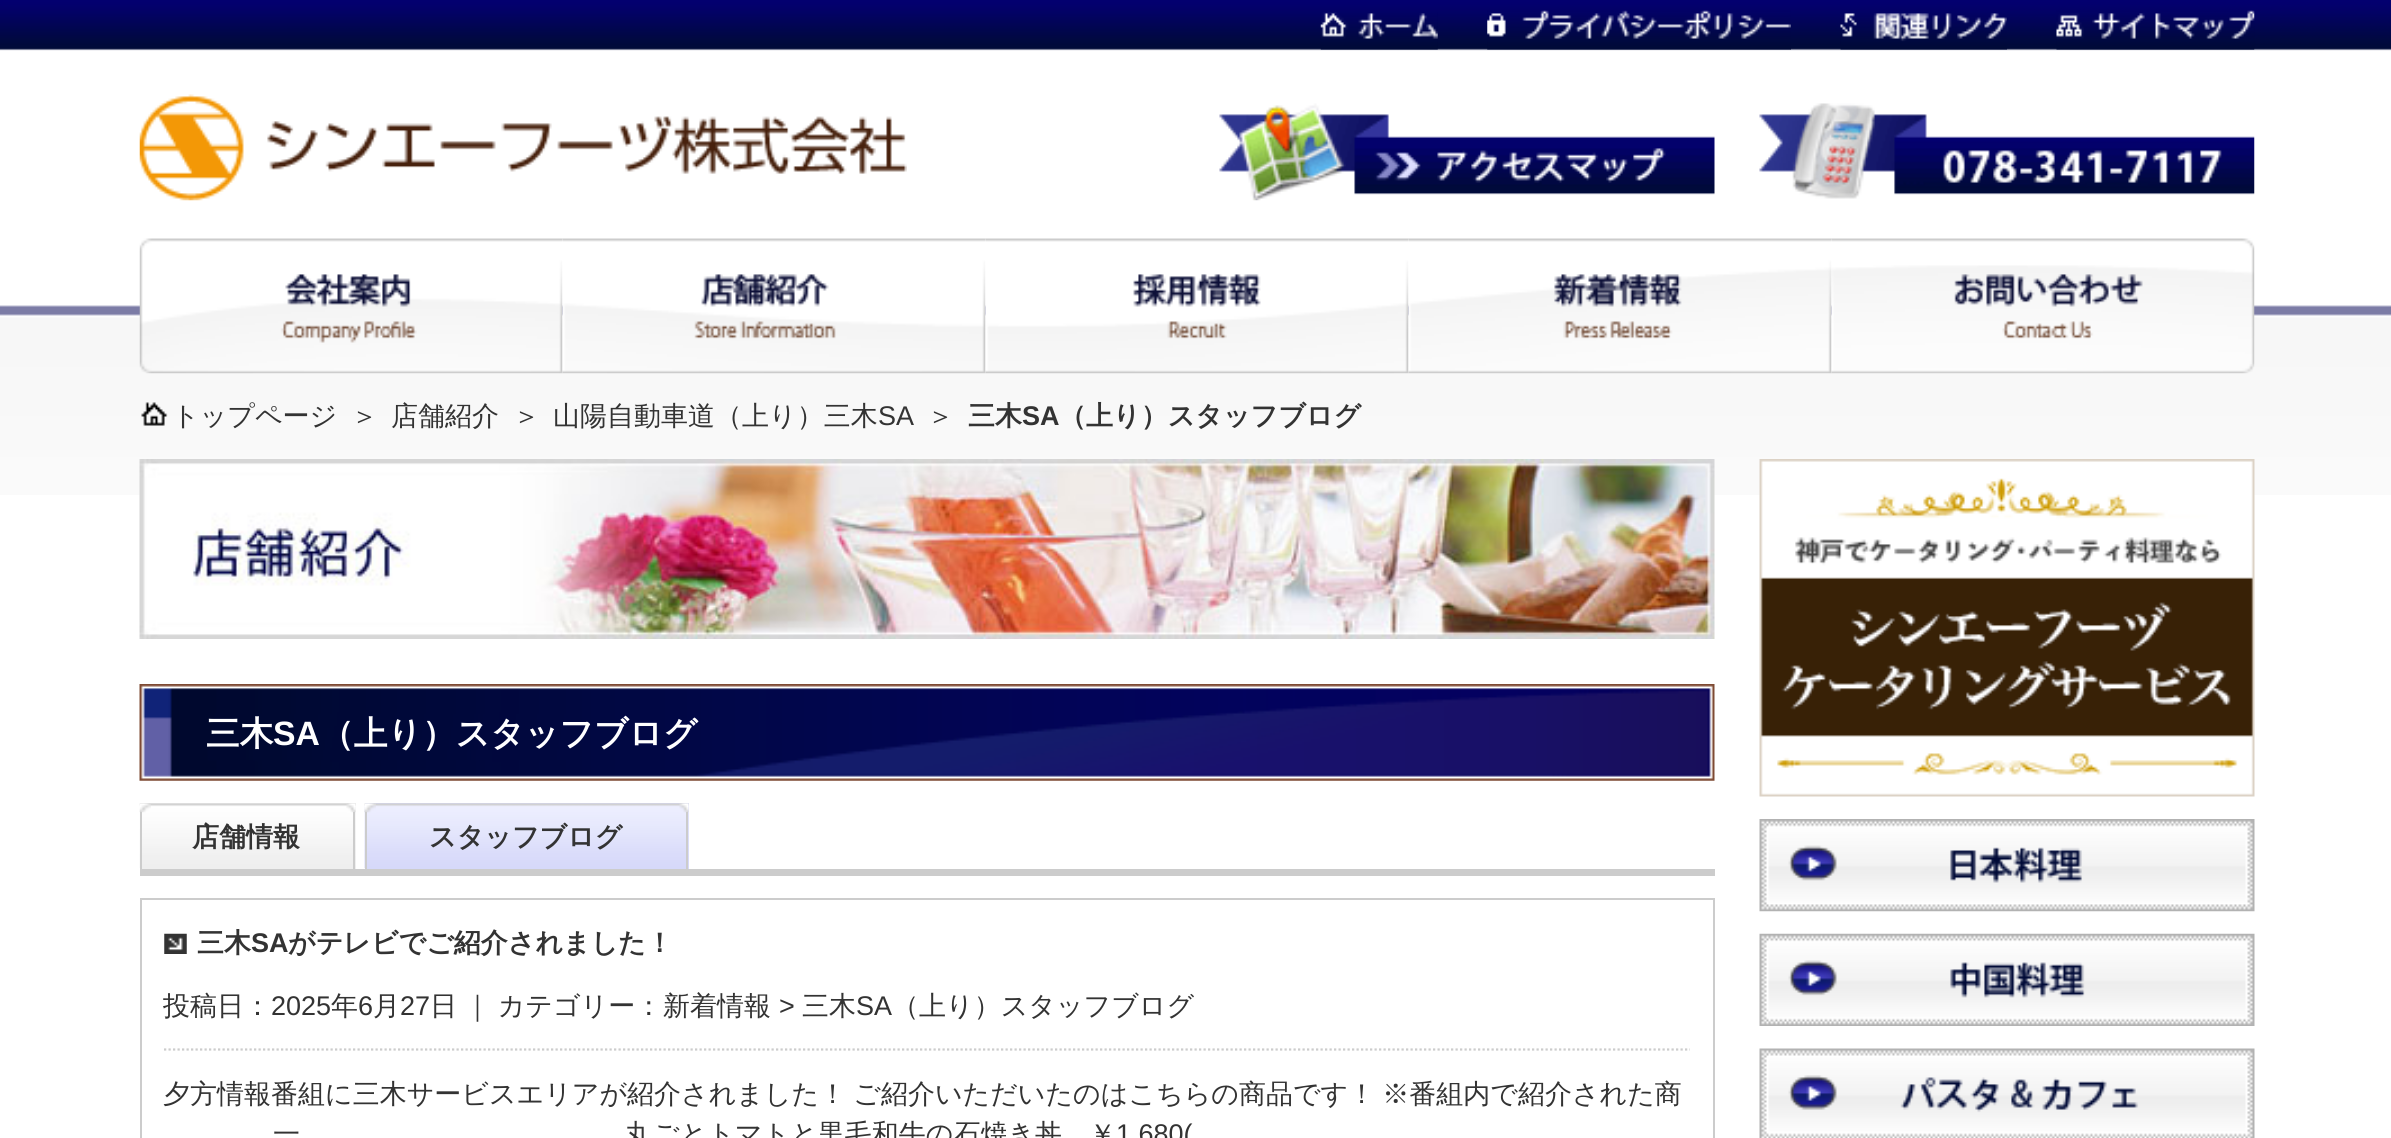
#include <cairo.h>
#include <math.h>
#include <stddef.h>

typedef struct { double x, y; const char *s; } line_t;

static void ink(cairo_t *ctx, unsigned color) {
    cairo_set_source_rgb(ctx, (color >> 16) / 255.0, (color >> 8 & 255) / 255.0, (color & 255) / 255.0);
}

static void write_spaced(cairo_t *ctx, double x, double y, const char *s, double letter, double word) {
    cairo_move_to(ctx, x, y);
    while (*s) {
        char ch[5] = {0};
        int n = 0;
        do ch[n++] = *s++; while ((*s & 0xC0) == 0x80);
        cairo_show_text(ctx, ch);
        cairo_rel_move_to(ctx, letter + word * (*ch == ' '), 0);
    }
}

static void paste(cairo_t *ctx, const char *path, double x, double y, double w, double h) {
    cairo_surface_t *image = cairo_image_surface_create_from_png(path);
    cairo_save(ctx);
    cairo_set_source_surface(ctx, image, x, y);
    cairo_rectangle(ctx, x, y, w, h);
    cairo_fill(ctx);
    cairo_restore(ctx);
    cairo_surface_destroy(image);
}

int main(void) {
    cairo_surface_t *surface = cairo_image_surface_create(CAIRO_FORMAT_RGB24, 2391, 1138);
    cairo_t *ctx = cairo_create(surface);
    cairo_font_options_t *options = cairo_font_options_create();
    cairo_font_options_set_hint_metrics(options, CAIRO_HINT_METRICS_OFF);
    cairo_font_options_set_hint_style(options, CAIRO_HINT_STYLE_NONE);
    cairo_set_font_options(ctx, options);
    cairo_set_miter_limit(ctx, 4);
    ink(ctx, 0xFFFFFF);
    cairo_paint(ctx);
    paste(ctx, "media/1.png", 0, 0, 2391, 495);
    paste(ctx, "media/2.png", 1320, 12, 118, 38);
    paste(ctx, "media/3.png", 1487, 10, 304, 40);
    paste(ctx, "media/4.png", 1840, 13, 167, 37);
    paste(ctx, "media/5.png", 2056, 10, 199, 40);
    paste(ctx, "media/6.png", 139, 94, 768, 107);
    paste(ctx, "media/7.png", 1759, 103, 496, 96);
    paste(ctx, "media/8.png", 1219, 103, 496, 98);
    paste(ctx, "media/9.png", 139, 238, 424, 136);
    paste(ctx, "media/10.png", 562, 238, 424, 136);
    paste(ctx, "media/11.png", 985, 238, 424, 136);
    paste(ctx, "media/12.png", 1408, 238, 424, 136);
    paste(ctx, "media/13.png", 1831, 238, 424, 136);
    paste(ctx, "media/14.png", 141, 402, 27, 24);
    cairo_select_font_face(ctx, "WenQuanYi Zen Hei Medium", CAIRO_FONT_SLANT_NORMAL, CAIRO_FONT_WEIGHT_NORMAL);
    cairo_set_font_size(ctx, 27);
    ink(ctx, 0x333333);
    {
        static const line_t items[] = {
            {172, 425, "トップページ"},
            {351, 425, "＞"},
            {391, 425, "店舗紹介"},
            {513, 425, "＞"},
            {553, 425, "山陽自動車道（上り）三木"},
        };
        for (size_t i = 0; i < sizeof items / sizeof *items; i++) {
            cairo_move_to(ctx, items[i].x, items[i].y);
            cairo_show_text(ctx, items[i].s);
        }
    }
    cairo_select_font_face(ctx, "Liberation Sans", CAIRO_FONT_SLANT_NORMAL, CAIRO_FONT_WEIGHT_NORMAL);
    cairo_move_to(ctx, 878, 425);
    cairo_show_text(ctx, "SA");
    cairo_select_font_face(ctx, "WenQuanYi Zen Hei Medium", CAIRO_FONT_SLANT_NORMAL, CAIRO_FONT_WEIGHT_NORMAL);
    cairo_move_to(ctx, 927, 425);
    cairo_show_text(ctx, "＞");
    cairo_select_font_face(ctx, "WenQuanYi Zen Hei", CAIRO_FONT_SLANT_NORMAL, CAIRO_FONT_WEIGHT_BOLD);
    cairo_move_to(ctx, 968, 425);
    cairo_show_text(ctx, "三木");
    cairo_select_font_face(ctx, "Liberation Sans", CAIRO_FONT_SLANT_NORMAL, CAIRO_FONT_WEIGHT_BOLD);
    cairo_move_to(ctx, 1022, 425);
    cairo_show_text(ctx, "SA");
    cairo_select_font_face(ctx, "WenQuanYi Zen Hei", CAIRO_FONT_SLANT_NORMAL, CAIRO_FONT_WEIGHT_BOLD);
    cairo_move_to(ctx, 1059, 425);
    cairo_show_text(ctx, "（上り）スタッフブログ");
    paste(ctx, "media/15.png", 139, 459, 1576, 180);
    paste(ctx, "media/16.png", 139, 684, 1576, 97);
    cairo_set_font_size(ctx, 33.75);
    ink(ctx, 0xFFFFFF);
    cairo_move_to(ctx, 206, 745);
    cairo_show_text(ctx, "三木");
    cairo_select_font_face(ctx, "Liberation Sans", CAIRO_FONT_SLANT_NORMAL, CAIRO_FONT_WEIGHT_BOLD);
    cairo_move_to(ctx, 273, 745);
    cairo_show_text(ctx, "SA");
    cairo_select_font_face(ctx, "WenQuanYi Zen Hei", CAIRO_FONT_SLANT_NORMAL, CAIRO_FONT_WEIGHT_BOLD);
    cairo_move_to(ctx, 320, 745);
    cairo_show_text(ctx, "（上り）スタッフブログ");
    ink(ctx, 0xCCCCCC);
    cairo_rectangle(ctx, 140, 869, 1575, 7);
    cairo_fill(ctx);
    ink(ctx, 0xEEEEEE);
    cairo_rectangle(ctx, 140, 803, 216, 66);
    cairo_fill(ctx);
    paste(ctx, "media/17.png", 139, 803, 217, 65);
    paste(ctx, "media/18.png", 139, 803, 12, 10);
    paste(ctx, "media/19.png", 346, 803, 10, 10);
    ink(ctx, 0xCCCCCC);
    cairo_rectangle(ctx, 353, 812, 2, 57);
    cairo_fill(ctx);
    cairo_rectangle(ctx, 140, 812, 2, 57);
    cairo_fill(ctx);
    cairo_set_font_size(ctx, 27);
    ink(ctx, 0x333333);
    cairo_move_to(ctx, 192, 846);
    cairo_show_text(ctx, "店舗情報");
    ink(ctx, 0xD6D9F9);
    cairo_rectangle(ctx, 365, 803, 324, 66);
    cairo_fill(ctx);
    paste(ctx, "media/20.png", 364, 803, 325, 66);
    paste(ctx, "media/21.png", 364, 803, 12, 10);
    paste(ctx, "media/22.png", 679, 803, 10, 10);
    ink(ctx, 0xCCCCCC);
    cairo_rectangle(ctx, 686, 812, 2, 57);
    cairo_fill(ctx);
    cairo_rectangle(ctx, 365, 812, 2, 57);
    cairo_fill(ctx);
    ink(ctx, 0x333333);
    cairo_move_to(ctx, 429, 846);
    cairo_show_text(ctx, "スタッフブログ");
    cairo_rectangle(ctx, 141, 899, 1573, 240);
    ink(ctx, 0xCCCCCC);
    cairo_stroke(ctx);
    paste(ctx, "media/23.png", 164, 933, 23, 21);
    ink(ctx, 0x333333);
    cairo_move_to(ctx, 197, 952);
    cairo_show_text(ctx, "三木");
    cairo_select_font_face(ctx, "Liberation Sans", CAIRO_FONT_SLANT_NORMAL, CAIRO_FONT_WEIGHT_BOLD);
    cairo_move_to(ctx, 251, 952);
    cairo_show_text(ctx, "SA");
    cairo_select_font_face(ctx, "WenQuanYi Zen Hei", CAIRO_FONT_SLANT_NORMAL, CAIRO_FONT_WEIGHT_BOLD);
    cairo_move_to(ctx, 288, 952);
    cairo_show_text(ctx, "がテレビでご紹介されました！");
    cairo_new_path(ctx);
    cairo_move_to(ctx, 164, 1049.5);
    cairo_line_to(ctx, 1690, 1049.5);
    ink(ctx, 0xCCCCCC);
    cairo_set_line_width(ctx, 2.2);
    cairo_set_dash(ctx, (double[]){2.25, 2.25}, 2, 0);
    cairo_stroke(ctx);
    cairo_select_font_face(ctx, "WenQuanYi Zen Hei Medium", CAIRO_FONT_SLANT_NORMAL, CAIRO_FONT_WEIGHT_NORMAL);
    ink(ctx, 0x333333);
    cairo_move_to(ctx, 163, 1015);
    cairo_show_text(ctx, "投稿日：");
    cairo_select_font_face(ctx, "Liberation Sans", CAIRO_FONT_SLANT_NORMAL, CAIRO_FONT_WEIGHT_NORMAL);
    cairo_move_to(ctx, 271, 1015);
    cairo_show_text(ctx, "2025");
    cairo_select_font_face(ctx, "WenQuanYi Zen Hei Medium", CAIRO_FONT_SLANT_NORMAL, CAIRO_FONT_WEIGHT_NORMAL);
    cairo_move_to(ctx, 331, 1015);
    cairo_show_text(ctx, "年");
    cairo_select_font_face(ctx, "Liberation Sans", CAIRO_FONT_SLANT_NORMAL, CAIRO_FONT_WEIGHT_NORMAL);
    cairo_move_to(ctx, 358, 1015);
    cairo_show_text(ctx, "6");
    cairo_select_font_face(ctx, "WenQuanYi Zen Hei Medium", CAIRO_FONT_SLANT_NORMAL, CAIRO_FONT_WEIGHT_NORMAL);
    cairo_move_to(ctx, 373, 1015);
    cairo_show_text(ctx, "月");
    cairo_select_font_face(ctx, "Liberation Sans", CAIRO_FONT_SLANT_NORMAL, CAIRO_FONT_WEIGHT_NORMAL);
    cairo_move_to(ctx, 400, 1015);
    cairo_show_text(ctx, "27");
    cairo_select_font_face(ctx, "WenQuanYi Zen Hei Medium", CAIRO_FONT_SLANT_NORMAL, CAIRO_FONT_WEIGHT_NORMAL);
    write_spaced(ctx, 430, 1015, "日 ｜ カテゴリー：", 0, -1);
    cairo_move_to(ctx, 663, 1015);
    cairo_show_text(ctx, "新着情報");
    cairo_select_font_face(ctx, "Liberation Sans", CAIRO_FONT_SLANT_NORMAL, CAIRO_FONT_WEIGHT_NORMAL);
    cairo_move_to(ctx, 779, 1015);
    cairo_show_text(ctx, ">");
    cairo_select_font_face(ctx, "WenQuanYi Zen Hei Medium", CAIRO_FONT_SLANT_NORMAL, CAIRO_FONT_WEIGHT_NORMAL);
    cairo_move_to(ctx, 802, 1015);
    cairo_show_text(ctx, "三木");
    cairo_select_font_face(ctx, "Liberation Sans", CAIRO_FONT_SLANT_NORMAL, CAIRO_FONT_WEIGHT_NORMAL);
    cairo_move_to(ctx, 856, 1015);
    cairo_show_text(ctx, "SA");
    cairo_select_font_face(ctx, "WenQuanYi Zen Hei Medium", CAIRO_FONT_SLANT_NORMAL, CAIRO_FONT_WEIGHT_NORMAL);
    cairo_move_to(ctx, 892, 1015);
    cairo_show_text(ctx, "（上り）スタッフブログ");
    write_spaced(ctx, 163, 1103, "夕方情報番組に三木サービスエリアが紹介されました！ ご紹介いただいたのはこちらの商品です！ ※番組内で紹介された商", 0, -1);
    cairo_move_to(ctx, 273, 1143);
    cairo_show_text(ctx, "一");
    cairo_move_to(ctx, 625, 1143);
    cairo_show_text(ctx, "丸ごとトマトと黒毛和牛の石焼き丼　￥");
    cairo_select_font_face(ctx, "Liberation Sans", CAIRO_FONT_SLANT_NORMAL, CAIRO_FONT_WEIGHT_NORMAL);
    cairo_move_to(ctx, 1116, 1143);
    cairo_show_text(ctx, "1,680(");
    paste(ctx, "media/24.png", 1759, 459, 496, 338);
    paste(ctx, "media/25.png", 1759, 819, 496, 93);
    paste(ctx, "media/26.png", 1759, 933, 496, 93);
    paste(ctx, "media/27.png", 1759, 1048, 496, 90);
    cairo_surface_write_to_png(surface, "image.png");
    cairo_font_options_destroy(options);
    cairo_destroy(ctx);
    cairo_surface_destroy(surface);
    return 0;
}
